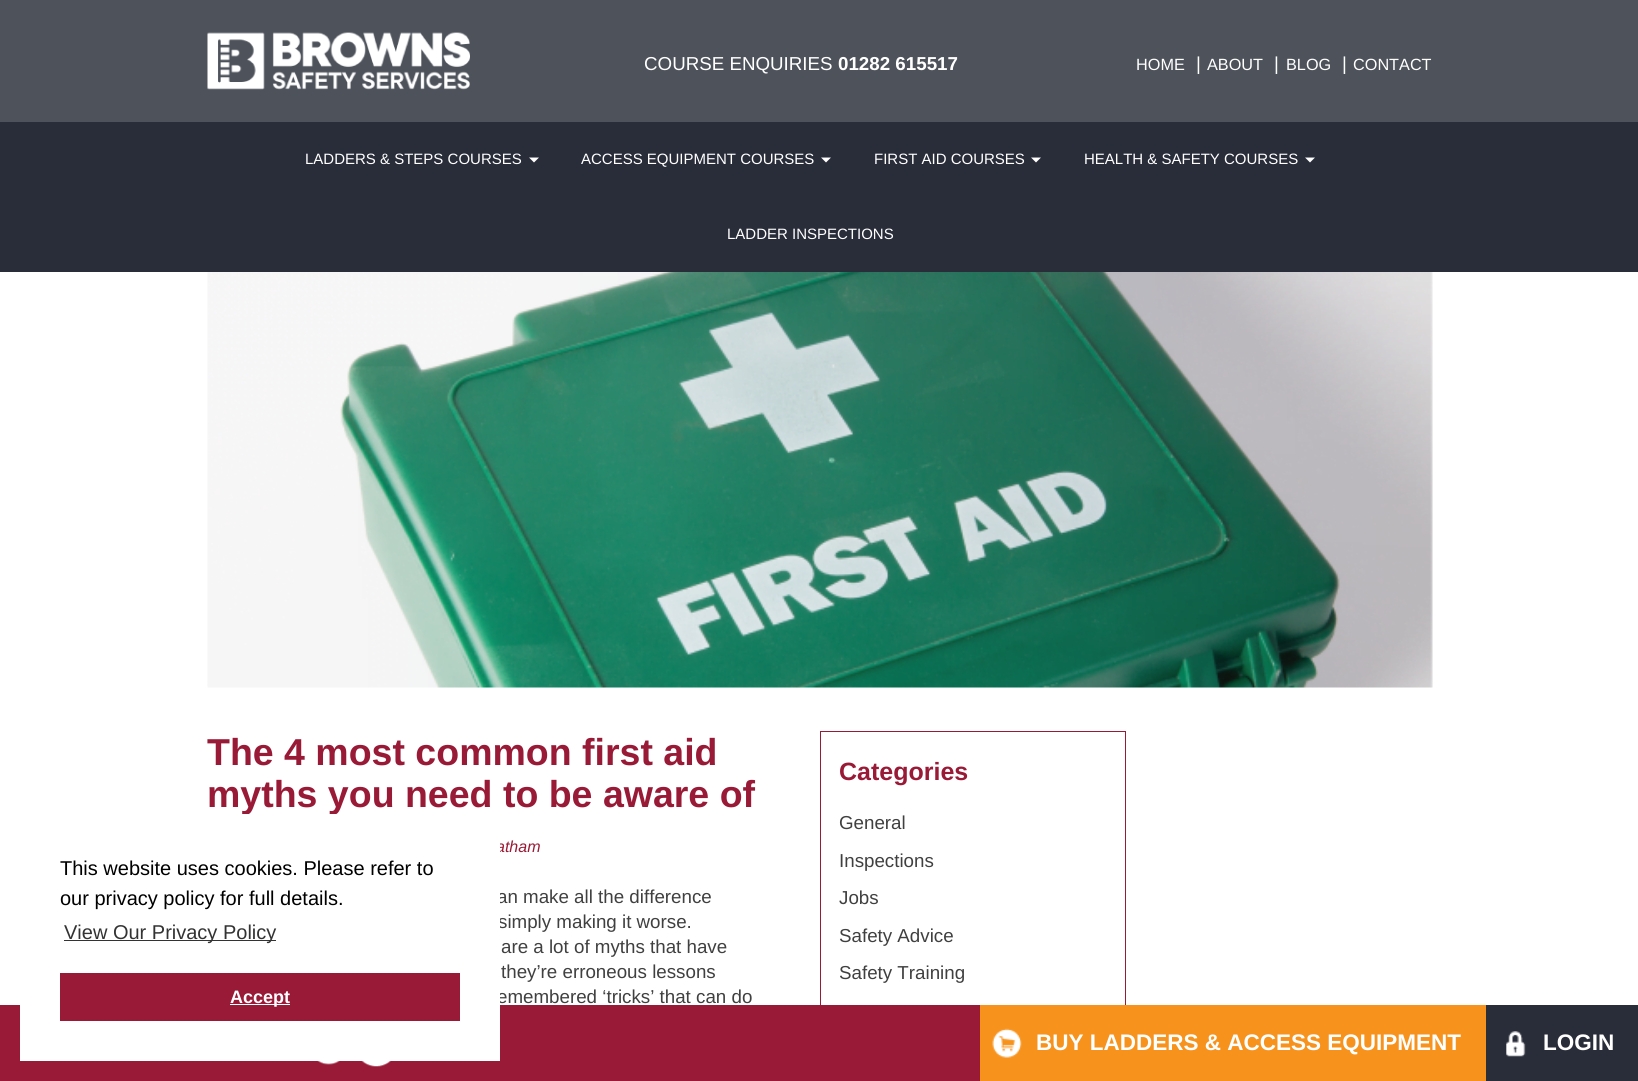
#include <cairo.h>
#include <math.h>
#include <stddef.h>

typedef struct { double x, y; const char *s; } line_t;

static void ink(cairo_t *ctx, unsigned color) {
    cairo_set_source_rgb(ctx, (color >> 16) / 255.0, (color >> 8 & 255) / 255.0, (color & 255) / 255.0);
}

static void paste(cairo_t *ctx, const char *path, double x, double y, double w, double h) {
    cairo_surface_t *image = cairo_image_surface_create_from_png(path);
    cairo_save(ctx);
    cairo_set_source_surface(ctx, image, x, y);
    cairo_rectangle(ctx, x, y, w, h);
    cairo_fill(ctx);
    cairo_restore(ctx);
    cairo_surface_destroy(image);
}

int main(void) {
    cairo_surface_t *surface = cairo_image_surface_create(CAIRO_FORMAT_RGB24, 1638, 1081);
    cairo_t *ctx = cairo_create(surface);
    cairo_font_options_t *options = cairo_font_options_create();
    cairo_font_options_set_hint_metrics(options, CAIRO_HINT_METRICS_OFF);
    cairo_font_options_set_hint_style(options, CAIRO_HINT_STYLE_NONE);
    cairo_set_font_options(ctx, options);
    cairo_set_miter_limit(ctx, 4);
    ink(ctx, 0xFFFFFF);
    cairo_paint(ctx);
    ink(ctx, 0x292D3A);
    cairo_rectangle(ctx, 0, 122, 1638, 150);
    cairo_fill(ctx);
    ink(ctx, 0x4D525B);
    cairo_rectangle(ctx, 0, 0, 1638, 122);
    cairo_fill(ctx);
    paste(ctx, "media/1.png", 207, 32, 263, 58);
    cairo_select_font_face(ctx, "Liberation Sans", CAIRO_FONT_SLANT_NORMAL, CAIRO_FONT_WEIGHT_NORMAL);
    cairo_set_font_size(ctx, 18.75);
    ink(ctx, 0xFFFFFF);
    cairo_move_to(ctx, 644, 70);
    cairo_show_text(ctx, "COURSE ENQUIRIES");
    cairo_select_font_face(ctx, "Liberation Sans", CAIRO_FONT_SLANT_NORMAL, CAIRO_FONT_WEIGHT_BOLD);
    cairo_move_to(ctx, 838, 70);
    cairo_show_text(ctx, "01282 615517");
    cairo_select_font_face(ctx, "Liberation Sans", CAIRO_FONT_SLANT_NORMAL, CAIRO_FONT_WEIGHT_NORMAL);
    cairo_set_font_size(ctx, 16.25);
    cairo_move_to(ctx, 1136, 70);
    cairo_show_text(ctx, "HOME");
    cairo_set_font_size(ctx, 18.75);
    cairo_move_to(ctx, 1196, 70);
    cairo_show_text(ctx, "|");
    cairo_set_font_size(ctx, 16.25);
    cairo_move_to(ctx, 1207, 70);
    cairo_show_text(ctx, "ABOUT");
    cairo_set_font_size(ctx, 18.75);
    cairo_move_to(ctx, 1274, 70);
    cairo_show_text(ctx, "|");
    cairo_set_font_size(ctx, 16.25);
    cairo_move_to(ctx, 1286, 70);
    cairo_show_text(ctx, "BLOG");
    cairo_set_font_size(ctx, 18.75);
    cairo_move_to(ctx, 1342, 70);
    cairo_show_text(ctx, "|");
    cairo_set_font_size(ctx, 16.25);
    cairo_move_to(ctx, 1353, 70);
    cairo_show_text(ctx, "CONTACT");
    cairo_set_font_size(ctx, 15);
    cairo_move_to(ctx, 305, 164);
    cairo_show_text(ctx, "LADDERS & STEPS COURSES");
    cairo_new_path(ctx);
    cairo_move_to(ctx, 529, 157.5);
    cairo_line_to(ctx, 539, 157.5);
    cairo_line_to(ctx, 534, 162.5);
    cairo_close_path(ctx);
    cairo_fill(ctx);
    cairo_move_to(ctx, 581, 164);
    cairo_show_text(ctx, "ACCESS EQUIPMENT COURSES");
    cairo_new_path(ctx);
    cairo_move_to(ctx, 821, 157.5);
    cairo_line_to(ctx, 831, 157.5);
    cairo_line_to(ctx, 826, 162.5);
    cairo_close_path(ctx);
    cairo_fill(ctx);
    cairo_move_to(ctx, 874, 164);
    cairo_show_text(ctx, "FIRST AID COURSES");
    cairo_new_path(ctx);
    cairo_move_to(ctx, 1031, 157.5);
    cairo_line_to(ctx, 1041, 157.5);
    cairo_line_to(ctx, 1036, 162.5);
    cairo_close_path(ctx);
    cairo_fill(ctx);
    cairo_move_to(ctx, 1084, 164);
    cairo_show_text(ctx, "HEALTH & SAFETY COURSES");
    cairo_new_path(ctx);
    cairo_move_to(ctx, 1305, 157.5);
    cairo_line_to(ctx, 1315, 157.5);
    cairo_line_to(ctx, 1310, 162.5);
    cairo_close_path(ctx);
    cairo_fill(ctx);
    cairo_move_to(ctx, 727, 239);
    cairo_show_text(ctx, "LADDER INSPECTIONS");
    paste(ctx, "media/2.png", 207, 272, 1226, 416);
    cairo_select_font_face(ctx, "Liberation Sans", CAIRO_FONT_SLANT_NORMAL, CAIRO_FONT_WEIGHT_BOLD);
    cairo_set_font_size(ctx, 37.5);
    ink(ctx, 0x991A36);
    cairo_move_to(ctx, 207, 765);
    cairo_show_text(ctx, "The 4 most common first aid");
    cairo_move_to(ctx, 207, 807);
    cairo_show_text(ctx, "myths you need to be aware of");
    cairo_select_font_face(ctx, "Liberation Sans", CAIRO_FONT_SLANT_ITALIC, CAIRO_FONT_WEIGHT_NORMAL);
    cairo_set_font_size(ctx, 16);
    cairo_move_to(ctx, 496, 852);
    cairo_show_text(ctx, "atham");
    cairo_select_font_face(ctx, "Liberation Sans", CAIRO_FONT_SLANT_NORMAL, CAIRO_FONT_WEIGHT_NORMAL);
    cairo_set_font_size(ctx, 18.75);
    ink(ctx, 0x404041);
    {
        static const line_t items[] = {
            {497, 903, "an make all the difference"},
            {498, 928, "simply making it worse."},
            {501, 953, "are a lot of myths that have"},
            {501, 978, "they’re erroneous lessons"},
            {497, 1003, "emembered ‘tricks’ that can do"},
        };
        for (size_t i = 0; i < sizeof items / sizeof *items; i++) {
            cairo_move_to(ctx, items[i].x, items[i].y);
            cairo_show_text(ctx, items[i].s);
        }
    }
    cairo_rectangle(ctx, 820.5, 731.5, 305, 279);
    ink(ctx, 0x991A36);
    cairo_set_line_width(ctx, 1);
    cairo_stroke(ctx);
    cairo_select_font_face(ctx, "Liberation Sans", CAIRO_FONT_SLANT_NORMAL, CAIRO_FONT_WEIGHT_BOLD);
    cairo_set_font_size(ctx, 25);
    cairo_move_to(ctx, 839, 780);
    cairo_show_text(ctx, "Categories");
    cairo_select_font_face(ctx, "Liberation Sans", CAIRO_FONT_SLANT_NORMAL, CAIRO_FONT_WEIGHT_NORMAL);
    cairo_set_font_size(ctx, 18.75);
    ink(ctx, 0x404041);
    {
        static const line_t items[] = {
            {839, 829, "General"},
            {839, 867, "Inspections"},
            {839, 904, "Jobs"},
            {839, 942, "Safety Advice"},
            {839, 979, "Safety Training"},
        };
        for (size_t i = 0; i < sizeof items / sizeof *items; i++) {
            cairo_move_to(ctx, items[i].x, items[i].y);
            cairo_show_text(ctx, items[i].s);
        }
    }
    ink(ctx, 0x991A37);
    cairo_rectangle(ctx, 0, 1005, 980, 76);
    cairo_fill(ctx);
    ink(ctx, 0xF7931D);
    cairo_rectangle(ctx, 980, 1005, 506, 76);
    cairo_fill(ctx);
    paste(ctx, "media/3.png", 992, 1028, 30, 30);
    cairo_select_font_face(ctx, "Liberation Sans", CAIRO_FONT_SLANT_NORMAL, CAIRO_FONT_WEIGHT_BOLD);
    cairo_set_font_size(ctx, 22.5);
    ink(ctx, 0xFFFFFF);
    cairo_move_to(ctx, 1036, 1050);
    cairo_show_text(ctx, "BUY LADDERS & ACCESS EQUIPMENT");
    ink(ctx, 0x292D39);
    cairo_rectangle(ctx, 1486, 1005, 152, 76);
    cairo_fill(ctx);
    paste(ctx, "media/4.png", 1506, 1031, 20, 26);
    ink(ctx, 0xFFFFFF);
    cairo_move_to(ctx, 1543, 1050);
    cairo_show_text(ctx, "LOGIN");
    paste(ctx, "media/5.png", 317, 1061, 23, 4);
    paste(ctx, "media/6.png", 361, 1061, 30, 6);
    cairo_rectangle(ctx, 20, 814, 480, 247);
    cairo_fill(ctx);
    cairo_select_font_face(ctx, "Liberation Sans", CAIRO_FONT_SLANT_NORMAL, CAIRO_FONT_WEIGHT_NORMAL);
    cairo_set_font_size(ctx, 20);
    ink(ctx, 0x000000);
    cairo_move_to(ctx, 60, 875);
    cairo_show_text(ctx, "This website uses cookies. Please refer to");
    cairo_move_to(ctx, 60, 905);
    cairo_show_text(ctx, "our privacy policy for full details.");
    ink(ctx, 0x333333);
    cairo_rectangle(ctx, 64, 940, 212, 1);
    cairo_fill(ctx);
    cairo_move_to(ctx, 64, 939);
    cairo_show_text(ctx, "View Our Privacy Policy");
    ink(ctx, 0x991A36);
    cairo_rectangle(ctx, 60, 973, 400, 48);
    cairo_fill(ctx);
    ink(ctx, 0xFFFFFF);
    cairo_rectangle(ctx, 230, 1004, 60, 1);
    cairo_fill(ctx);
    cairo_select_font_face(ctx, "Liberation Sans", CAIRO_FONT_SLANT_NORMAL, CAIRO_FONT_WEIGHT_BOLD);
    cairo_set_font_size(ctx, 18);
    cairo_move_to(ctx, 230, 1003);
    cairo_show_text(ctx, "Accept");
    cairo_surface_write_to_png(surface, "image.png");
    cairo_font_options_destroy(options);
    cairo_destroy(ctx);
    cairo_surface_destroy(surface);
    return 0;
}
